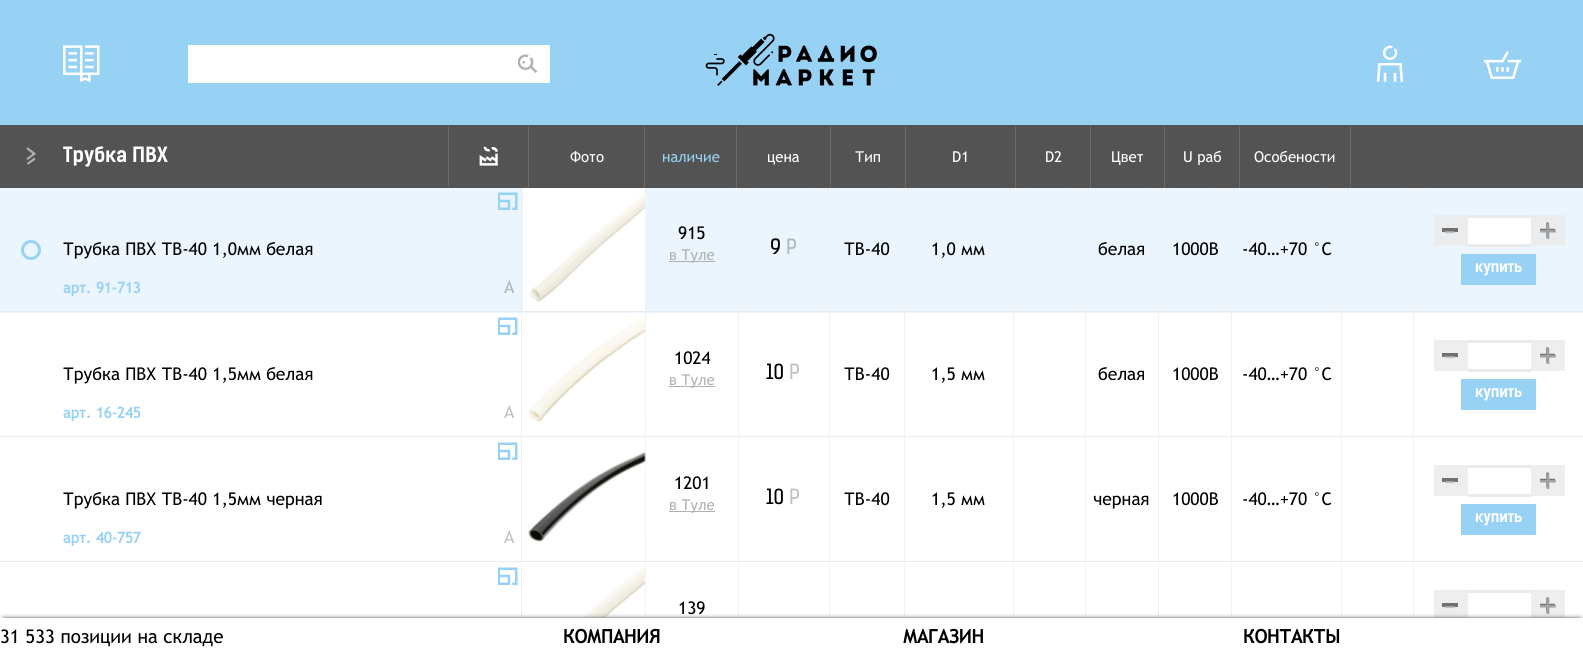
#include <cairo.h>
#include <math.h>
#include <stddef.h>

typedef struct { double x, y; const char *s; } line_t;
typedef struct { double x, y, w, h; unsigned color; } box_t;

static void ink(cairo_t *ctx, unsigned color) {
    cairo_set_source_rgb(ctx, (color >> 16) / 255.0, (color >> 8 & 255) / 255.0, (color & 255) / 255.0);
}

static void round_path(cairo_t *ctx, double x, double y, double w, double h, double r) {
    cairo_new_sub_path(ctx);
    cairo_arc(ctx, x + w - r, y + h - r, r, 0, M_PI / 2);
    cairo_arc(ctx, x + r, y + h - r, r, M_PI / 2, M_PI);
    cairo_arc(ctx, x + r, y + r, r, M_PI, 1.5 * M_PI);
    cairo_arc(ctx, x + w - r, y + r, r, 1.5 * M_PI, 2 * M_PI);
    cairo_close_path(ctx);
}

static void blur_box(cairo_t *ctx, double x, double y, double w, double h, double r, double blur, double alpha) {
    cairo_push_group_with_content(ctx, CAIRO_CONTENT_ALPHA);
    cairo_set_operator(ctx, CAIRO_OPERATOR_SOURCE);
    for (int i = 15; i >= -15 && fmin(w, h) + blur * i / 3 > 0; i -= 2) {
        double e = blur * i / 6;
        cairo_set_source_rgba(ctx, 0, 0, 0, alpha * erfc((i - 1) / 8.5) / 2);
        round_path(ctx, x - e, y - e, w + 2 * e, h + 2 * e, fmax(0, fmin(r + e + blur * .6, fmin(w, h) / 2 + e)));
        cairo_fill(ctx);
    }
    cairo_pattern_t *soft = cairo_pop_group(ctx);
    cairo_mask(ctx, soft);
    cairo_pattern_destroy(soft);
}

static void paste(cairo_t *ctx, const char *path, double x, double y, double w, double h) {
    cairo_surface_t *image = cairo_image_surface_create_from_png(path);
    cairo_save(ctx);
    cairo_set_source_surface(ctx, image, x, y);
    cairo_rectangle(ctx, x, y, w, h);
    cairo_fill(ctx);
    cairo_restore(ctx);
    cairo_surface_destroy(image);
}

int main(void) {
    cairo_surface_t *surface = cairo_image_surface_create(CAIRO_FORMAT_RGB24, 1583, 655);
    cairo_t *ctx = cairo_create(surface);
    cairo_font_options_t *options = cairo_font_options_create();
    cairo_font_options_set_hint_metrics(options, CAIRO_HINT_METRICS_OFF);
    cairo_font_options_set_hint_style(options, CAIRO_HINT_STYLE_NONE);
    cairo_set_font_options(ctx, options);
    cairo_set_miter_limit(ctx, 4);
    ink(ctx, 0xEAF5FD);
    cairo_paint(ctx);
    ink(ctx, 0x97D2F5);
    cairo_rectangle(ctx, 0, 0, 1583, 125);
    cairo_fill(ctx);
    paste(ctx, "media/1.png", 63, 45, 37, 38);
    ink(ctx, 0xFFFFFF);
    cairo_rectangle(ctx, 188, 45, 362, 38);
    cairo_fill(ctx);
    paste(ctx, "media/2.png", 518, 54, 20, 19);
    paste(ctx, "media/3.png", 705, 33, 172, 53);
    paste(ctx, "media/4.png", 1376, 45, 28, 37);
    paste(ctx, "media/5.png", 1484, 51, 37, 28);
    ink(ctx, 0x535353);
    cairo_rectangle(ctx, 0, 125, 1583, 63);
    cairo_fill(ctx);
    paste(ctx, "media/6.png", 26, 147, 10, 18);
    ink(ctx, 0x6B6B6B);
    cairo_rectangle(ctx, 528, 126, 1, 62);
    cairo_fill(ctx);
    cairo_select_font_face(ctx, "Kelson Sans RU", CAIRO_FONT_SLANT_NORMAL, CAIRO_FONT_WEIGHT_BOLD);
    cairo_set_font_size(ctx, 20);
    ink(ctx, 0xFFFFFF);
    cairo_move_to(ctx, 63, 162);
    cairo_show_text(ctx, "Трубка ПВХ");
    paste(ctx, "media/7.png", 479, 146, 19, 20);
    ink(ctx, 0x6B6B6B);
    cairo_rectangle(ctx, 448, 126, 1, 60);
    cairo_fill(ctx);
    cairo_rectangle(ctx, 644, 126, 1, 62);
    cairo_fill(ctx);
    cairo_select_font_face(ctx, "Trebuchet MS", CAIRO_FONT_SLANT_NORMAL, CAIRO_FONT_WEIGHT_NORMAL);
    cairo_set_font_size(ctx, 15);
    ink(ctx, 0xFFFFFF);
    cairo_move_to(ctx, 570, 162);
    cairo_show_text(ctx, "Фото");
    ink(ctx, 0x6B6B6B);
    cairo_rectangle(ctx, 736, 126, 1, 62);
    cairo_fill(ctx);
    ink(ctx, 0x97D2F5);
    cairo_move_to(ctx, 662, 162);
    cairo_show_text(ctx, "наличие");
    ink(ctx, 0x6B6B6B);
    cairo_rectangle(ctx, 830, 126, 1, 62);
    cairo_fill(ctx);
    ink(ctx, 0xFFFFFF);
    cairo_move_to(ctx, 767, 162);
    cairo_show_text(ctx, "цена");
    ink(ctx, 0x6B6B6B);
    cairo_rectangle(ctx, 905, 126, 1, 62);
    cairo_fill(ctx);
    ink(ctx, 0xFFFFFF);
    cairo_move_to(ctx, 855, 162);
    cairo_show_text(ctx, "Тип");
    ink(ctx, 0x6B6B6B);
    cairo_rectangle(ctx, 1015, 126, 1, 62);
    cairo_fill(ctx);
    ink(ctx, 0xFFFFFF);
    cairo_move_to(ctx, 952, 162);
    cairo_show_text(ctx, "D1");
    ink(ctx, 0x6B6B6B);
    cairo_rectangle(ctx, 1090, 126, 1, 62);
    cairo_fill(ctx);
    ink(ctx, 0xFFFFFF);
    cairo_move_to(ctx, 1045, 162);
    cairo_show_text(ctx, "D2");
    ink(ctx, 0x6B6B6B);
    cairo_rectangle(ctx, 1164, 126, 1, 62);
    cairo_fill(ctx);
    ink(ctx, 0xFFFFFF);
    cairo_move_to(ctx, 1111, 162);
    cairo_show_text(ctx, "Цвет");
    ink(ctx, 0x6B6B6B);
    cairo_rectangle(ctx, 1239, 126, 1, 62);
    cairo_fill(ctx);
    ink(ctx, 0xFFFFFF);
    cairo_move_to(ctx, 1183, 162);
    cairo_show_text(ctx, "U раб");
    ink(ctx, 0x6B6B6B);
    cairo_rectangle(ctx, 1350, 126, 1, 62);
    cairo_fill(ctx);
    ink(ctx, 0xFFFFFF);
    cairo_move_to(ctx, 1254, 162);
    cairo_show_text(ctx, "Особености");
    ink(ctx, 0xEAEAEA);
    cairo_rectangle(ctx, 0, 311, 1583, 1);
    cairo_fill(ctx);
    cairo_arc(ctx, 31, 250, 8.5, 0, 2 * M_PI);
    ink(ctx, 0x97D2F5);
    cairo_set_line_width(ctx, 3);
    cairo_stroke(ctx);
    ink(ctx, 0xF1F1F1);
    cairo_rectangle(ctx, 521, 188, 1, 123);
    cairo_fill(ctx);
    paste(ctx, "media/8.png", 498, 192, 20, 18);
    cairo_set_font_size(ctx, 17.5);
    ink(ctx, 0x000000);
    cairo_move_to(ctx, 63, 255);
    cairo_show_text(ctx, "Трубка ПВХ ТВ-40 1,0мм белая");
    cairo_select_font_face(ctx, "Trebuchet MS", CAIRO_FONT_SLANT_NORMAL, CAIRO_FONT_WEIGHT_BOLD);
    cairo_set_font_size(ctx, 15);
    ink(ctx, 0x97D2F5);
    cairo_move_to(ctx, 63, 293);
    cairo_show_text(ctx, "арт. 91-713");
    cairo_select_font_face(ctx, "Trebuchet MS", CAIRO_FONT_SLANT_NORMAL, CAIRO_FONT_WEIGHT_NORMAL);
    cairo_set_font_size(ctx, 17.5);
    ink(ctx, 0xB0B8BE);
    cairo_move_to(ctx, 504, 293);
    cairo_show_text(ctx, "A");
    ink(ctx, 0xFFFFFF);
    cairo_rectangle(ctx, 523, 188, 122, 123);
    cairo_fill(ctx);
    ink(ctx, 0xF1F1F1);
    cairo_rectangle(ctx, 645, 188, 1, 123);
    cairo_fill(ctx);
    paste(ctx, "media/9.png", 530, 193, 116, 109);
    cairo_rectangle(ctx, 738, 188, 1, 123);
    cairo_fill(ctx);
    ink(ctx, 0x000000);
    cairo_move_to(ctx, 678, 239);
    cairo_show_text(ctx, "915");
    ink(ctx, 0xB1B1B1);
    cairo_rectangle(ctx, 669, 261, 46, 1);
    cairo_fill(ctx);
    cairo_set_font_size(ctx, 15);
    cairo_move_to(ctx, 669, 260);
    cairo_show_text(ctx, "в Туле");
    ink(ctx, 0xF1F1F1);
    cairo_rectangle(ctx, 829, 188, 1, 123);
    cairo_fill(ctx);
    cairo_select_font_face(ctx, "Kelson Sans RU", CAIRO_FONT_SLANT_NORMAL, CAIRO_FONT_WEIGHT_NORMAL);
    cairo_set_font_size(ctx, 20);
    ink(ctx, 0x000000);
    cairo_move_to(ctx, 770, 254);
    cairo_show_text(ctx, "9");
    ink(ctx, 0xB0B8BE);
    cairo_move_to(ctx, 786, 254);
    cairo_show_text(ctx, "Р");
    ink(ctx, 0xF1F1F1);
    cairo_rectangle(ctx, 904, 188, 1, 123);
    cairo_fill(ctx);
    cairo_select_font_face(ctx, "Trebuchet MS", CAIRO_FONT_SLANT_NORMAL, CAIRO_FONT_WEIGHT_NORMAL);
    cairo_set_font_size(ctx, 17.5);
    ink(ctx, 0x000000);
    cairo_move_to(ctx, 844, 255);
    cairo_show_text(ctx, "ТВ-40");
    ink(ctx, 0xF1F1F1);
    cairo_rectangle(ctx, 1013, 188, 1, 123);
    cairo_fill(ctx);
    ink(ctx, 0x000000);
    cairo_move_to(ctx, 931, 255);
    cairo_show_text(ctx, "1,0 мм");
    ink(ctx, 0xF1F1F1);
    cairo_rectangle(ctx, 1085, 188, 1, 123);
    cairo_fill(ctx);
    cairo_rectangle(ctx, 1158, 188, 1, 123);
    cairo_fill(ctx);
    ink(ctx, 0x000000);
    cairo_move_to(ctx, 1098, 255);
    cairo_show_text(ctx, "белая");
    ink(ctx, 0xF1F1F1);
    cairo_rectangle(ctx, 1231, 188, 1, 123);
    cairo_fill(ctx);
    ink(ctx, 0x000000);
    cairo_move_to(ctx, 1172, 255);
    cairo_show_text(ctx, "1000B");
    ink(ctx, 0xF1F1F1);
    cairo_rectangle(ctx, 1341, 188, 1, 123);
    cairo_fill(ctx);
    ink(ctx, 0x000000);
    cairo_move_to(ctx, 1242, 255);
    cairo_show_text(ctx, "-40…+70 °C");
    {
        static const box_t items[] = {
            {1413, 188, 1, 123, 0xF1F1F1},
            {1434, 215, 34, 31, 0xEAECEE},
            {1442, 228, 16, 4, 0x707070},
        };
        for (size_t i = 0; i < sizeof items / sizeof *items; i++) {
            ink(ctx, items[i].color);
            cairo_rectangle(ctx, items[i].x, items[i].y, items[i].w, items[i].h);
            cairo_fill(ctx);
        }
    }
    cairo_set_font_size(ctx, 38);
    ink(ctx, 0xC0C1C3);
    cairo_move_to(ctx, 1443, 243);
    cairo_show_text(ctx, "–");
    {
        static const box_t items[] = {
            {1468, 218, 63, 26, 0xFFFFFF},
            {1468, 215, 63, 3, 0xEAEAEA},
            {1468, 244, 63, 3, 0xEAEAEA},
            {1531, 215, 34, 31, 0xEAECEE},
        };
        for (size_t i = 0; i < sizeof items / sizeof *items; i++) {
            ink(ctx, items[i].color);
            cairo_rectangle(ctx, items[i].x, items[i].y, items[i].w, items[i].h);
            cairo_fill(ctx);
        }
    }
    paste(ctx, "media/10.png", 1540, 222, 15, 16);
    ink(ctx, 0xA0A1A2);
    cairo_move_to(ctx, 1538, 243);
    cairo_show_text(ctx, "+");
    ink(ctx, 0x97D2F5);
    cairo_rectangle(ctx, 1461, 254, 75, 31);
    cairo_fill(ctx);
    cairo_select_font_face(ctx, "Kelson Sans RU", CAIRO_FONT_SLANT_NORMAL, CAIRO_FONT_WEIGHT_BOLD);
    cairo_set_font_size(ctx, 15);
    ink(ctx, 0xFFFFFF);
    cairo_move_to(ctx, 1475, 272);
    cairo_show_text(ctx, "купить");
    {
        static const box_t items[] = {
            {0, 313, 1583, 305, 0xFFFFFF},
            {0, 436, 1583, 1, 0xEAEAEA},
            {521, 313, 1, 123, 0xF1F1F1},
        };
        for (size_t i = 0; i < sizeof items / sizeof *items; i++) {
            ink(ctx, items[i].color);
            cairo_rectangle(ctx, items[i].x, items[i].y, items[i].w, items[i].h);
            cairo_fill(ctx);
        }
    }
    paste(ctx, "media/11.png", 498, 317, 20, 18);
    cairo_select_font_face(ctx, "Trebuchet MS", CAIRO_FONT_SLANT_NORMAL, CAIRO_FONT_WEIGHT_NORMAL);
    cairo_set_font_size(ctx, 17.5);
    ink(ctx, 0x000000);
    cairo_move_to(ctx, 63, 380);
    cairo_show_text(ctx, "Трубка ПВХ ТВ-40 1,5мм белая");
    cairo_select_font_face(ctx, "Trebuchet MS", CAIRO_FONT_SLANT_NORMAL, CAIRO_FONT_WEIGHT_BOLD);
    cairo_set_font_size(ctx, 15);
    ink(ctx, 0x97D2F5);
    cairo_move_to(ctx, 63, 418);
    cairo_show_text(ctx, "арт. 16-245");
    cairo_select_font_face(ctx, "Trebuchet MS", CAIRO_FONT_SLANT_NORMAL, CAIRO_FONT_WEIGHT_NORMAL);
    cairo_set_font_size(ctx, 17.5);
    ink(ctx, 0xC0C1C3);
    cairo_move_to(ctx, 504, 418);
    cairo_show_text(ctx, "A");
    ink(ctx, 0xF1F1F1);
    cairo_rectangle(ctx, 645, 313, 1, 123);
    cairo_fill(ctx);
    paste(ctx, "media/12.png", 528, 318, 118, 104);
    cairo_rectangle(ctx, 738, 313, 1, 123);
    cairo_fill(ctx);
    ink(ctx, 0x000000);
    cairo_move_to(ctx, 674, 364);
    cairo_show_text(ctx, "1024");
    ink(ctx, 0xB1B1B1);
    cairo_rectangle(ctx, 669, 386, 46, 1);
    cairo_fill(ctx);
    cairo_set_font_size(ctx, 15);
    cairo_move_to(ctx, 669, 385);
    cairo_show_text(ctx, "в Туле");
    ink(ctx, 0xF1F1F1);
    cairo_rectangle(ctx, 829, 313, 1, 123);
    cairo_fill(ctx);
    cairo_select_font_face(ctx, "Kelson Sans RU", CAIRO_FONT_SLANT_NORMAL, CAIRO_FONT_WEIGHT_NORMAL);
    cairo_set_font_size(ctx, 20);
    ink(ctx, 0x000000);
    cairo_move_to(ctx, 766, 379);
    cairo_show_text(ctx, "10");
    ink(ctx, 0xC0C1C3);
    cairo_move_to(ctx, 789, 379);
    cairo_show_text(ctx, "Р");
    ink(ctx, 0xF1F1F1);
    cairo_rectangle(ctx, 904, 313, 1, 123);
    cairo_fill(ctx);
    cairo_select_font_face(ctx, "Trebuchet MS", CAIRO_FONT_SLANT_NORMAL, CAIRO_FONT_WEIGHT_NORMAL);
    cairo_set_font_size(ctx, 17.5);
    ink(ctx, 0x000000);
    cairo_move_to(ctx, 844, 380);
    cairo_show_text(ctx, "ТВ-40");
    ink(ctx, 0xF1F1F1);
    cairo_rectangle(ctx, 1013, 313, 1, 123);
    cairo_fill(ctx);
    ink(ctx, 0x000000);
    cairo_move_to(ctx, 931, 380);
    cairo_show_text(ctx, "1,5 мм");
    ink(ctx, 0xF1F1F1);
    cairo_rectangle(ctx, 1085, 313, 1, 123);
    cairo_fill(ctx);
    cairo_rectangle(ctx, 1158, 313, 1, 123);
    cairo_fill(ctx);
    ink(ctx, 0x000000);
    cairo_move_to(ctx, 1098, 380);
    cairo_show_text(ctx, "белая");
    ink(ctx, 0xF1F1F1);
    cairo_rectangle(ctx, 1231, 313, 1, 123);
    cairo_fill(ctx);
    ink(ctx, 0x000000);
    cairo_move_to(ctx, 1172, 380);
    cairo_show_text(ctx, "1000B");
    ink(ctx, 0xF1F1F1);
    cairo_rectangle(ctx, 1341, 313, 1, 123);
    cairo_fill(ctx);
    ink(ctx, 0x000000);
    cairo_move_to(ctx, 1242, 380);
    cairo_show_text(ctx, "-40…+70 °C");
    {
        static const box_t items[] = {
            {1413, 313, 1, 123, 0xF1F1F1},
            {1434, 340, 34, 31, 0xEEEEEE},
            {1442, 353, 16, 4, 0x707070},
        };
        for (size_t i = 0; i < sizeof items / sizeof *items; i++) {
            ink(ctx, items[i].color);
            cairo_rectangle(ctx, items[i].x, items[i].y, items[i].w, items[i].h);
            cairo_fill(ctx);
        }
    }
    cairo_set_font_size(ctx, 38);
    ink(ctx, 0xC0C1C3);
    cairo_move_to(ctx, 1443, 368);
    cairo_show_text(ctx, "–");
    {
        static const box_t items[] = {
            {1468, 340, 63, 3, 0xEAEAEA},
            {1468, 369, 63, 3, 0xEAEAEA},
            {1531, 340, 34, 31, 0xEEEEEE},
        };
        for (size_t i = 0; i < sizeof items / sizeof *items; i++) {
            ink(ctx, items[i].color);
            cairo_rectangle(ctx, items[i].x, items[i].y, items[i].w, items[i].h);
            cairo_fill(ctx);
        }
    }
    paste(ctx, "media/13.png", 1540, 347, 15, 16);
    ink(ctx, 0xA0A1A2);
    cairo_move_to(ctx, 1538, 368);
    cairo_show_text(ctx, "+");
    ink(ctx, 0x97D2F5);
    cairo_rectangle(ctx, 1461, 379, 75, 31);
    cairo_fill(ctx);
    cairo_select_font_face(ctx, "Kelson Sans RU", CAIRO_FONT_SLANT_NORMAL, CAIRO_FONT_WEIGHT_BOLD);
    cairo_set_font_size(ctx, 15);
    ink(ctx, 0xFFFFFF);
    cairo_move_to(ctx, 1475, 397);
    cairo_show_text(ctx, "купить");
    ink(ctx, 0xEAEAEA);
    cairo_rectangle(ctx, 0, 561, 1583, 1);
    cairo_fill(ctx);
    ink(ctx, 0xF1F1F1);
    cairo_rectangle(ctx, 521, 438, 1, 123);
    cairo_fill(ctx);
    paste(ctx, "media/11.png", 498, 442, 20, 18);
    cairo_select_font_face(ctx, "Trebuchet MS", CAIRO_FONT_SLANT_NORMAL, CAIRO_FONT_WEIGHT_NORMAL);
    cairo_set_font_size(ctx, 17.5);
    ink(ctx, 0x000000);
    cairo_move_to(ctx, 63, 505);
    cairo_show_text(ctx, "Трубка ПВХ ТВ-40 1,5мм черная");
    cairo_select_font_face(ctx, "Trebuchet MS", CAIRO_FONT_SLANT_NORMAL, CAIRO_FONT_WEIGHT_BOLD);
    cairo_set_font_size(ctx, 15);
    ink(ctx, 0x97D2F5);
    cairo_move_to(ctx, 63, 543);
    cairo_show_text(ctx, "арт. 40-757");
    cairo_select_font_face(ctx, "Trebuchet MS", CAIRO_FONT_SLANT_NORMAL, CAIRO_FONT_WEIGHT_NORMAL);
    cairo_set_font_size(ctx, 17.5);
    ink(ctx, 0xC0C1C3);
    cairo_move_to(ctx, 504, 543);
    cairo_show_text(ctx, "A");
    ink(ctx, 0xF1F1F1);
    cairo_rectangle(ctx, 645, 438, 1, 123);
    cairo_fill(ctx);
    paste(ctx, "media/14.png", 528, 452, 118, 90);
    cairo_rectangle(ctx, 738, 438, 1, 123);
    cairo_fill(ctx);
    ink(ctx, 0x000000);
    cairo_move_to(ctx, 674, 489);
    cairo_show_text(ctx, "1201");
    ink(ctx, 0xB1B1B1);
    cairo_rectangle(ctx, 669, 511, 46, 1);
    cairo_fill(ctx);
    cairo_set_font_size(ctx, 15);
    cairo_move_to(ctx, 669, 510);
    cairo_show_text(ctx, "в Туле");
    ink(ctx, 0xF1F1F1);
    cairo_rectangle(ctx, 829, 438, 1, 123);
    cairo_fill(ctx);
    cairo_select_font_face(ctx, "Kelson Sans RU", CAIRO_FONT_SLANT_NORMAL, CAIRO_FONT_WEIGHT_NORMAL);
    cairo_set_font_size(ctx, 20);
    ink(ctx, 0x000000);
    cairo_move_to(ctx, 766, 504);
    cairo_show_text(ctx, "10");
    ink(ctx, 0xC0C1C3);
    cairo_move_to(ctx, 789, 504);
    cairo_show_text(ctx, "Р");
    ink(ctx, 0xF1F1F1);
    cairo_rectangle(ctx, 904, 438, 1, 123);
    cairo_fill(ctx);
    cairo_select_font_face(ctx, "Trebuchet MS", CAIRO_FONT_SLANT_NORMAL, CAIRO_FONT_WEIGHT_NORMAL);
    cairo_set_font_size(ctx, 17.5);
    ink(ctx, 0x000000);
    cairo_move_to(ctx, 844, 505);
    cairo_show_text(ctx, "ТВ-40");
    ink(ctx, 0xF1F1F1);
    cairo_rectangle(ctx, 1013, 438, 1, 123);
    cairo_fill(ctx);
    ink(ctx, 0x000000);
    cairo_move_to(ctx, 931, 505);
    cairo_show_text(ctx, "1,5 мм");
    ink(ctx, 0xF1F1F1);
    cairo_rectangle(ctx, 1085, 438, 1, 123);
    cairo_fill(ctx);
    cairo_rectangle(ctx, 1158, 438, 1, 123);
    cairo_fill(ctx);
    ink(ctx, 0x000000);
    cairo_move_to(ctx, 1093, 505);
    cairo_show_text(ctx, "черная");
    ink(ctx, 0xF1F1F1);
    cairo_rectangle(ctx, 1231, 438, 1, 123);
    cairo_fill(ctx);
    ink(ctx, 0x000000);
    cairo_move_to(ctx, 1172, 505);
    cairo_show_text(ctx, "1000B");
    ink(ctx, 0xF1F1F1);
    cairo_rectangle(ctx, 1341, 438, 1, 123);
    cairo_fill(ctx);
    ink(ctx, 0x000000);
    cairo_move_to(ctx, 1242, 505);
    cairo_show_text(ctx, "-40…+70 °C");
    {
        static const box_t items[] = {
            {1413, 438, 1, 123, 0xF1F1F1},
            {1434, 465, 34, 31, 0xEEEEEE},
            {1442, 478, 16, 4, 0x707070},
        };
        for (size_t i = 0; i < sizeof items / sizeof *items; i++) {
            ink(ctx, items[i].color);
            cairo_rectangle(ctx, items[i].x, items[i].y, items[i].w, items[i].h);
            cairo_fill(ctx);
        }
    }
    cairo_set_font_size(ctx, 38);
    ink(ctx, 0xC0C1C3);
    cairo_move_to(ctx, 1443, 493);
    cairo_show_text(ctx, "–");
    {
        static const box_t items[] = {
            {1468, 465, 63, 3, 0xEAEAEA},
            {1468, 494, 63, 3, 0xEAEAEA},
            {1531, 465, 34, 31, 0xEEEEEE},
        };
        for (size_t i = 0; i < sizeof items / sizeof *items; i++) {
            ink(ctx, items[i].color);
            cairo_rectangle(ctx, items[i].x, items[i].y, items[i].w, items[i].h);
            cairo_fill(ctx);
        }
    }
    paste(ctx, "media/13.png", 1540, 472, 15, 16);
    ink(ctx, 0xA0A1A2);
    cairo_move_to(ctx, 1538, 493);
    cairo_show_text(ctx, "+");
    ink(ctx, 0x97D2F5);
    cairo_rectangle(ctx, 1461, 504, 75, 31);
    cairo_fill(ctx);
    cairo_select_font_face(ctx, "Kelson Sans RU", CAIRO_FONT_SLANT_NORMAL, CAIRO_FONT_WEIGHT_BOLD);
    cairo_set_font_size(ctx, 15);
    ink(ctx, 0xFFFFFF);
    cairo_move_to(ctx, 1475, 522);
    cairo_show_text(ctx, "купить");
    ink(ctx, 0xF1F1F1);
    cairo_rectangle(ctx, 521, 563, 1, 55);
    cairo_fill(ctx);
    paste(ctx, "media/11.png", 498, 567, 20, 18);
    cairo_rectangle(ctx, 645, 563, 1, 55);
    cairo_fill(ctx);
    paste(ctx, "media/15.png", 584, 567, 62, 51);
    cairo_rectangle(ctx, 738, 563, 1, 55);
    cairo_fill(ctx);
    cairo_select_font_face(ctx, "Trebuchet MS", CAIRO_FONT_SLANT_NORMAL, CAIRO_FONT_WEIGHT_NORMAL);
    cairo_set_font_size(ctx, 17.5);
    ink(ctx, 0x000000);
    cairo_move_to(ctx, 678, 614);
    cairo_show_text(ctx, "139");
    {
        static const box_t items[] = {
            {829, 563, 1, 55, 0xF1F1F1},
            {904, 563, 1, 55, 0xF1F1F1},
            {1013, 563, 1, 55, 0xF1F1F1},
            {1085, 563, 1, 55, 0xF1F1F1},
            {1158, 563, 1, 55, 0xF1F1F1},
            {1231, 563, 1, 55, 0xF1F1F1},
            {1341, 563, 1, 55, 0xF1F1F1},
            {1413, 563, 1, 55, 0xF1F1F1},
            {1468, 590, 63, 3, 0xEAEAEA},
            {1434, 590, 34, 28, 0xEEEEEE},
            {1442, 603, 16, 4, 0x707070},
        };
        for (size_t i = 0; i < sizeof items / sizeof *items; i++) {
            ink(ctx, items[i].color);
            cairo_rectangle(ctx, items[i].x, items[i].y, items[i].w, items[i].h);
            cairo_fill(ctx);
        }
    }
    cairo_set_font_size(ctx, 38);
    ink(ctx, 0xC0C1C3);
    cairo_move_to(ctx, 1443, 618);
    cairo_show_text(ctx, "–");
    ink(ctx, 0xEEEEEE);
    cairo_rectangle(ctx, 1531, 590, 34, 28);
    cairo_fill(ctx);
    paste(ctx, "media/13.png", 1540, 597, 15, 16);
    ink(ctx, 0xA0A1A2);
    cairo_move_to(ctx, 1538, 618);
    cairo_show_text(ctx, "+");
    ink(ctx, 0x000000);
    blur_box(ctx, 4, 619, 1576, 30, 0, 2.5, 1);
    ink(ctx, 0xFFFFFF);
    cairo_rectangle(ctx, 0, 618, 1583, 37);
    cairo_fill(ctx);
    cairo_set_font_size(ctx, 18.75);
    ink(ctx, 0x000000);
    cairo_move_to(ctx, 0, 643);
    cairo_show_text(ctx, "31 533 позиции на складе");
    cairo_select_font_face(ctx, "Trebuchet MS", CAIRO_FONT_SLANT_NORMAL, CAIRO_FONT_WEIGHT_BOLD);
    {
        static const line_t items[] = {
            {563, 643, "КОМПАНИЯ"},
            {903, 643, "МАГАЗИН"},
            {1243, 643, "КОНТАКТЫ"},
        };
        for (size_t i = 0; i < sizeof items / sizeof *items; i++) {
            cairo_move_to(ctx, items[i].x, items[i].y);
            cairo_show_text(ctx, items[i].s);
        }
    }
    cairo_surface_write_to_png(surface, "image.png");
    cairo_font_options_destroy(options);
    cairo_destroy(ctx);
    cairo_surface_destroy(surface);
    return 0;
}
